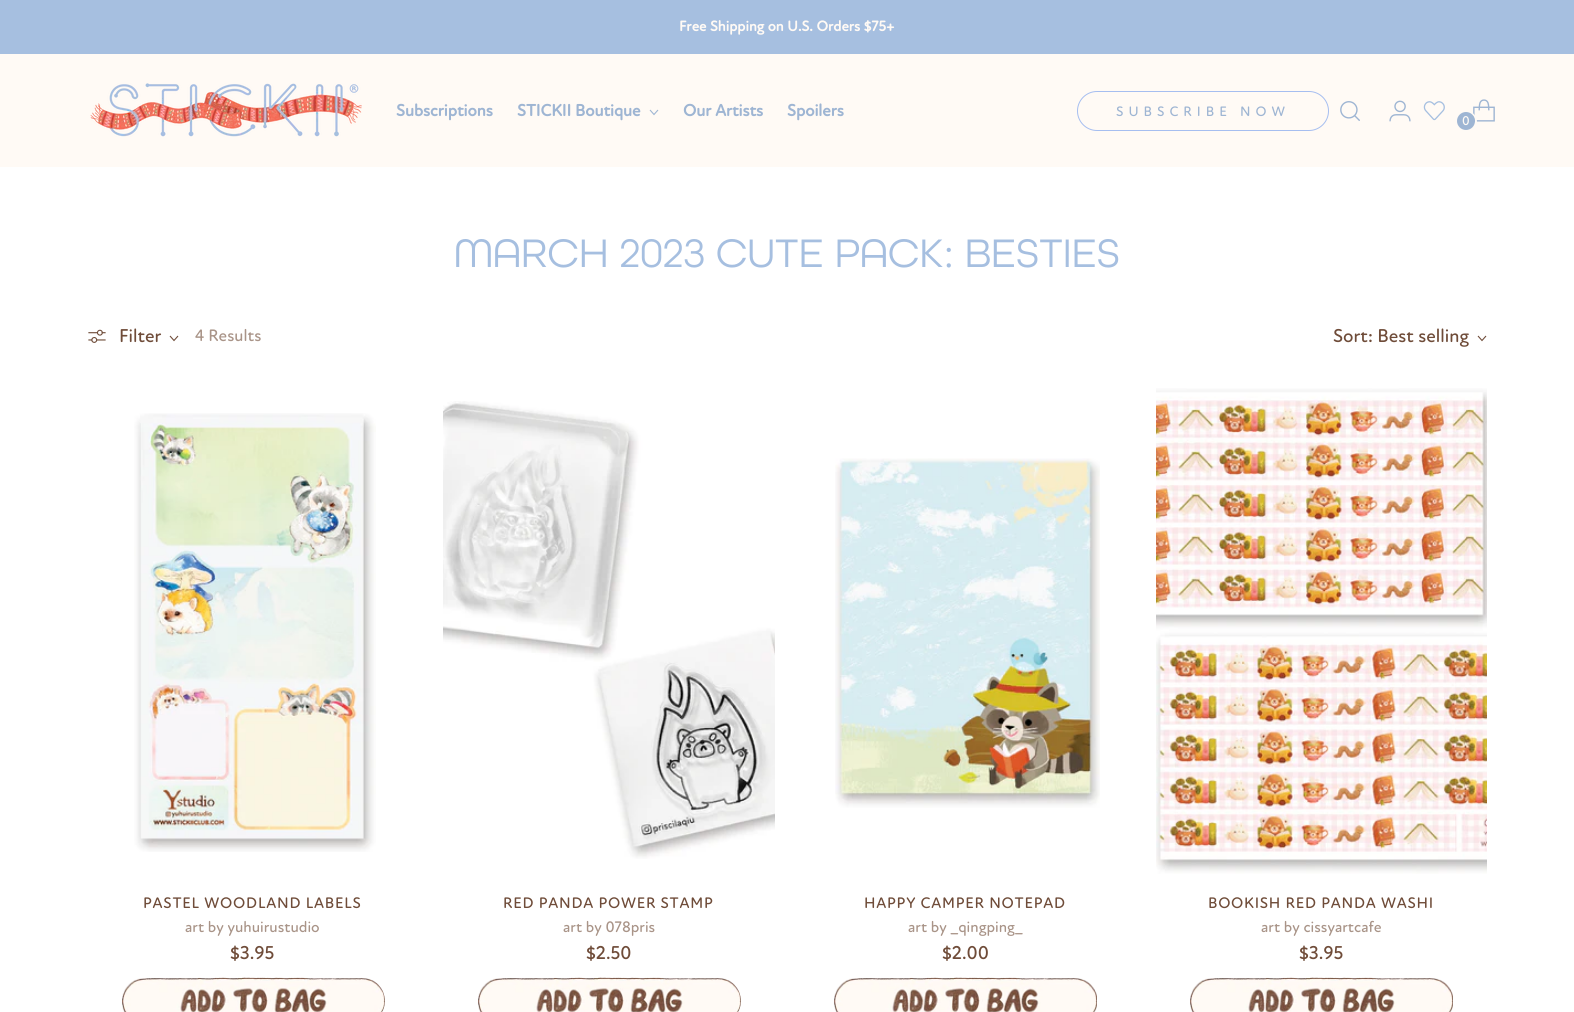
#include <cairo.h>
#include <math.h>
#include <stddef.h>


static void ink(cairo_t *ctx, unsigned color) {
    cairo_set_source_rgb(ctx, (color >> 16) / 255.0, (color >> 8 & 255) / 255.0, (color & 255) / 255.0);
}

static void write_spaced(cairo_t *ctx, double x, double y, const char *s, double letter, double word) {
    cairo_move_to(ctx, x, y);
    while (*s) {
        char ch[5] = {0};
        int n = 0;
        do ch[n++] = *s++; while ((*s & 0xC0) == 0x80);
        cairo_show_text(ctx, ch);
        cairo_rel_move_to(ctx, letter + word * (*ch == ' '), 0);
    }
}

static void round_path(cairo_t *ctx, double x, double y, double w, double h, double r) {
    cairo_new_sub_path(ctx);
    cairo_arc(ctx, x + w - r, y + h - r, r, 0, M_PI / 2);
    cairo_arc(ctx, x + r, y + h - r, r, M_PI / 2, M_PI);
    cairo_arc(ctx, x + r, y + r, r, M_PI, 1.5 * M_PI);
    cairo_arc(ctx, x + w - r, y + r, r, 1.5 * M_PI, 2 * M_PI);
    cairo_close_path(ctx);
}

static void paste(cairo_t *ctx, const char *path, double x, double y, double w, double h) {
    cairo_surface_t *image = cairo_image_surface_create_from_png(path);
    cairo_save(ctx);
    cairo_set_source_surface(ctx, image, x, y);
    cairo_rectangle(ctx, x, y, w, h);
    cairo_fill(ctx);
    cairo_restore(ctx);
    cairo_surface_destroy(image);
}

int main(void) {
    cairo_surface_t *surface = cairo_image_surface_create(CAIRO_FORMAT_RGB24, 1574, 1012);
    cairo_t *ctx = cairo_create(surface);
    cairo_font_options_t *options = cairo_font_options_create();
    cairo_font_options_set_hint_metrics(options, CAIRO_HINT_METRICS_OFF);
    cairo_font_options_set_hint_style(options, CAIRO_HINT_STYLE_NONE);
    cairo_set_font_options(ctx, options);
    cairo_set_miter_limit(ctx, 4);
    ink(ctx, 0xFFFFFF);
    cairo_paint(ctx);
    ink(ctx, 0xA6BFE0);
    cairo_rectangle(ctx, 0, 0, 1574, 54);
    cairo_fill(ctx);
    cairo_select_font_face(ctx, "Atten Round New", CAIRO_FONT_SLANT_NORMAL, CAIRO_FONT_WEIGHT_BOLD);
    cairo_set_font_size(ctx, 14.75);
    ink(ctx, 0xFFFAF5);
    cairo_move_to(ctx, 679, 31);
    cairo_show_text(ctx, "Free Shipping on U.S. Orders $75+");
    cairo_rectangle(ctx, 0, 54, 1574, 113);
    cairo_fill(ctx);
    paste(ctx, "media/1.png", 90, 83, 272, 54);
    cairo_set_font_size(ctx, 17);
    ink(ctx, 0x9EB5D3);
    write_spaced(ctx, 396, 116, "Subscriptions", -0.1, 0);
    write_spaced(ctx, 517, 116, "STICKII Boutique", -0.1, 0);
    cairo_new_path(ctx);
    cairo_move_to(ctx, 650, 110);
    cairo_line_to(ctx, 654, 114.5);
    cairo_line_to(ctx, 658, 110);
    cairo_set_line_width(ctx, 1.1);
    cairo_stroke(ctx);
    write_spaced(ctx, 683, 116, "Our Artists", -0.1, 0);
    write_spaced(ctx, 787, 116, "Spoilers", -0.1, 0);
    round_path(ctx, 1077.5, 91.5, 251, 39, 19.5);
    ink(ctx, 0xA6BEF0);
    cairo_set_line_width(ctx, 1);
    cairo_stroke(ctx);
    cairo_select_font_face(ctx, "Atten Round New Medium", CAIRO_FONT_SLANT_NORMAL, CAIRO_FONT_WEIGHT_NORMAL);
    cairo_set_font_size(ctx, 14);
    ink(ctx, 0x9EB5D3);
    write_spaced(ctx, 1116, 116, "SUBSCRIBE NOW", 5, 0);
    paste(ctx, "media/2.png", 1340, 101, 20, 20);
    paste(ctx, "media/3.png", 1389, 100, 22, 22);
    paste(ctx, "media/4.png", 1423, 101, 22, 20);
    paste(ctx, "media/5.png", 1473, 99, 22, 23);
    cairo_arc(ctx, 1466.5, 121.5, 9.5, 0, 2 * M_PI);
    ink(ctx, 0xFFFAF5);
    cairo_set_line_width(ctx, 2);
    cairo_stroke(ctx);
    ink(ctx, 0x9EB5D3);
    cairo_arc(ctx, 1466, 121, 9, 0, 2 * M_PI);
    cairo_fill(ctx);
    cairo_set_font_size(ctx, 13);
    ink(ctx, 0xFFFAF5);
    cairo_move_to(ctx, 1462, 125);
    cairo_show_text(ctx, "0");
    cairo_select_font_face(ctx, "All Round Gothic", CAIRO_FONT_SLANT_NORMAL, CAIRO_FONT_WEIGHT_NORMAL);
    cairo_set_font_size(ctx, 42);
    ink(ctx, 0xA6BFE0);
    cairo_move_to(ctx, 454, 267);
    cairo_show_text(ctx, "MARCH 2023 CUTE PACK: BESTIES");
    paste(ctx, "media/6.png", 88, 329, 18, 14);
    cairo_select_font_face(ctx, "Atten Round New Medium", CAIRO_FONT_SLANT_NORMAL, CAIRO_FONT_WEIGHT_NORMAL);
    cairo_set_font_size(ctx, 19);
    ink(ctx, 0x6F4C39);
    cairo_move_to(ctx, 119, 342);
    cairo_show_text(ctx, "Filter");
    cairo_new_path(ctx);
    cairo_move_to(ctx, 170, 336);
    cairo_line_to(ctx, 174, 340.5);
    cairo_line_to(ctx, 178, 336);
    cairo_set_line_width(ctx, 1.1);
    cairo_stroke(ctx);
    cairo_set_font_size(ctx, 17);
    ink(ctx, 0xA99488);
    cairo_move_to(ctx, 195, 341);
    cairo_show_text(ctx, "4 Results");
    cairo_set_font_size(ctx, 19);
    ink(ctx, 0x6F4C39);
    cairo_move_to(ctx, 1333, 342);
    cairo_show_text(ctx, "Sort: Best selling");
    cairo_new_path(ctx);
    cairo_move_to(ctx, 1478, 336);
    cairo_line_to(ctx, 1482, 340.5);
    cairo_line_to(ctx, 1486, 336);
    cairo_stroke(ctx);
    paste(ctx, "media/7.png", 134, 413, 242, 439);
    cairo_set_font_size(ctx, 15.6);
    write_spaced(ctx, 143, 908, "PASTEL WOODLAND LABELS", 0.75, 0);
    ink(ctx, 0xA99488);
    cairo_move_to(ctx, 185, 932);
    cairo_show_text(ctx, "art by yuhuirustudio");
    cairo_set_font_size(ctx, 19);
    ink(ctx, 0x6F4C39);
    cairo_move_to(ctx, 230, 959);
    cairo_show_text(ctx, "$3.95");
    paste(ctx, "media/8.png", 122, 977, 263, 35);
    paste(ctx, "media/9.png", 443, 401, 332, 458);
    cairo_set_font_size(ctx, 15.6);
    write_spaced(ctx, 503, 908, "RED PANDA POWER STAMP", 0.75, 0);
    ink(ctx, 0xA99488);
    cairo_move_to(ctx, 563, 932);
    cairo_show_text(ctx, "art by 078pris");
    cairo_set_font_size(ctx, 19);
    ink(ctx, 0x6F4C39);
    cairo_move_to(ctx, 586, 959);
    cairo_show_text(ctx, "$2.50");
    paste(ctx, "media/10.png", 478, 977, 263, 35);
    paste(ctx, "media/11.png", 835, 458, 265, 350);
    cairo_set_font_size(ctx, 15.6);
    write_spaced(ctx, 864, 908, "HAPPY CAMPER NOTEPAD", 0.75, 0);
    ink(ctx, 0xA99488);
    cairo_move_to(ctx, 908, 932);
    cairo_show_text(ctx, "art by _qingping_");
    cairo_set_font_size(ctx, 19);
    ink(ctx, 0x6F4C39);
    cairo_move_to(ctx, 942, 959);
    cairo_show_text(ctx, "$2.00");
    paste(ctx, "media/12.png", 834, 977, 263, 35);
    paste(ctx, "media/13.png", 1156, 388, 331, 486);
    cairo_set_font_size(ctx, 15.6);
    write_spaced(ctx, 1208, 908, "BOOKISH RED PANDA WASHI", 0.75, 0);
    ink(ctx, 0xA99488);
    cairo_move_to(ctx, 1261, 932);
    cairo_show_text(ctx, "art by cissyartcafe");
    cairo_set_font_size(ctx, 19);
    ink(ctx, 0x6F4C39);
    cairo_move_to(ctx, 1299, 959);
    cairo_show_text(ctx, "$3.95");
    paste(ctx, "media/12.png", 1190, 977, 263, 35);
    cairo_surface_write_to_png(surface, "image.png");
    cairo_font_options_destroy(options);
    cairo_destroy(ctx);
    cairo_surface_destroy(surface);
    return 0;
}
